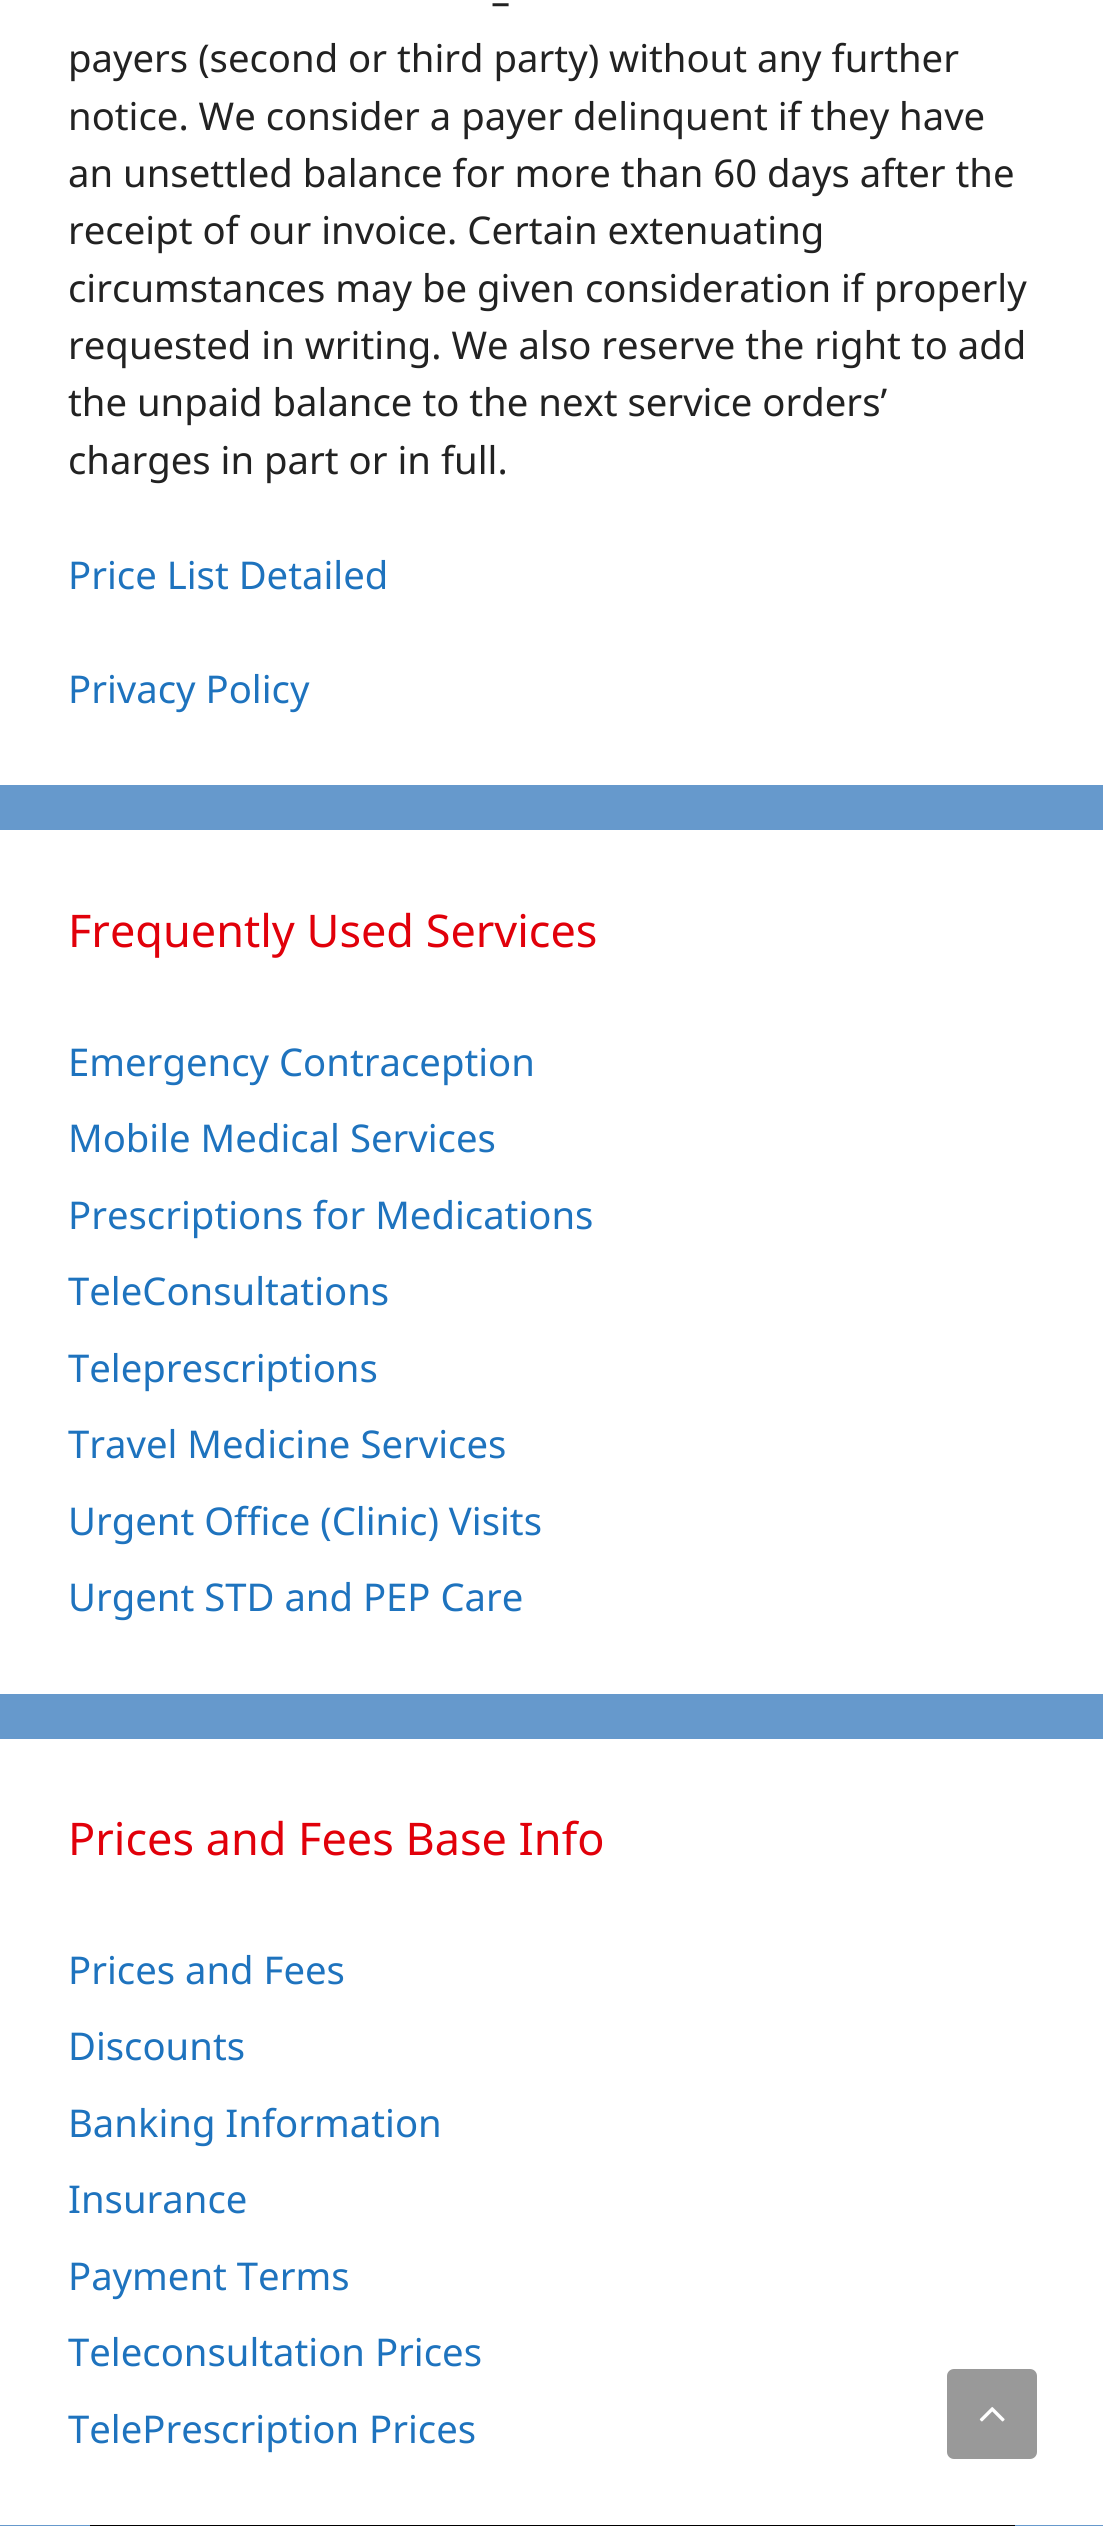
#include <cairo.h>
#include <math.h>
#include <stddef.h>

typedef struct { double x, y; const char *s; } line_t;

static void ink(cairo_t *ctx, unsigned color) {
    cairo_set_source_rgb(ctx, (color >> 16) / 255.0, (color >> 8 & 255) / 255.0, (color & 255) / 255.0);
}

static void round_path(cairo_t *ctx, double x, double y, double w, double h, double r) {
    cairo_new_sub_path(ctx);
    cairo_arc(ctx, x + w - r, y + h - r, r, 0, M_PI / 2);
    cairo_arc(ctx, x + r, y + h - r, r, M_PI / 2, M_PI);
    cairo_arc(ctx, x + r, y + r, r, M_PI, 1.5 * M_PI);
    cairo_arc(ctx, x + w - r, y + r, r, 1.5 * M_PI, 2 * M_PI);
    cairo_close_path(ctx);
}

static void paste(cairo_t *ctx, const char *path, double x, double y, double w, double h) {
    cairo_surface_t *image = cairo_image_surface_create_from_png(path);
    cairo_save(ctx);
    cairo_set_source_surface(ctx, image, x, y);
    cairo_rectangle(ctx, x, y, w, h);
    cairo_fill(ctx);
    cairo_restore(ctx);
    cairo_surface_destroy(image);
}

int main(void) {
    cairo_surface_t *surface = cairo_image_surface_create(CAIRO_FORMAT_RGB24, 1103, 2526);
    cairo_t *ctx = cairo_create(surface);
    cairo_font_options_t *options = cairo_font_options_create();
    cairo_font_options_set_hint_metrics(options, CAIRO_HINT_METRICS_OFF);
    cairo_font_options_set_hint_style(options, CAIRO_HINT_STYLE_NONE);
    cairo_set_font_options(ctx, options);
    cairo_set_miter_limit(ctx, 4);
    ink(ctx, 0x6699CC);
    cairo_paint(ctx);
    ink(ctx, 0xFFFFFF);
    cairo_rectangle(ctx, 0, 0, 1103, 785);
    cairo_fill(ctx);
    cairo_select_font_face(ctx, "Noto Sans", CAIRO_FONT_SLANT_NORMAL, CAIRO_FONT_WEIGHT_NORMAL);
    cairo_set_font_size(ctx, 38.25);
    ink(ctx, 0x222222);
    {
        static const line_t items[] = {
            {491, 15, "–"},
            {68, 72, "payers (second or third party) without any further"},
            {68, 130, "notice. We consider a payer delinquent if they have"},
            {68, 187, "an unsettled balance for more than 60 days after the"},
            {68, 244, "receipt of our invoice. Certain extenuating"},
            {68, 302, "circumstances may be given consideration if properly"},
            {68, 359, "requested in writing. We also reserve the right to add"},
            {68, 416, "the unpaid balance to the next service orders’"},
            {68, 474, "charges in part or in full."},
        };
        for (size_t i = 0; i < sizeof items / sizeof *items; i++) {
            cairo_move_to(ctx, items[i].x, items[i].y);
            cairo_show_text(ctx, items[i].s);
        }
    }
    ink(ctx, 0x1E73BE);
    cairo_move_to(ctx, 68, 589);
    cairo_show_text(ctx, "Price List Detailed");
    cairo_move_to(ctx, 68, 703);
    cairo_show_text(ctx, "Privacy Policy");
    ink(ctx, 0xFFFFFF);
    cairo_rectangle(ctx, 0, 830, 1103, 864);
    cairo_fill(ctx);
    cairo_set_font_size(ctx, 45);
    ink(ctx, 0xE1000A);
    cairo_move_to(ctx, 68, 947);
    cairo_show_text(ctx, "Frequently Used Services");
    cairo_set_font_size(ctx, 38.25);
    ink(ctx, 0x1E73BE);
    {
        static const line_t items[] = {
            {68, 1076, "Emergency Contraception"},
            {68, 1152, "Mobile Medical Services"},
            {68, 1229, "Prescriptions for Medications"},
            {68, 1305, "TeleConsultations"},
            {68, 1382, "Teleprescriptions"},
            {68, 1458, "Travel Medicine Services"},
            {68, 1535, "Urgent Office (Clinic) Visits"},
            {68, 1611, "Urgent STD and PEP Care"},
        };
        for (size_t i = 0; i < sizeof items / sizeof *items; i++) {
            cairo_move_to(ctx, items[i].x, items[i].y);
            cairo_show_text(ctx, items[i].s);
        }
    }
    ink(ctx, 0xFFFFFF);
    cairo_rectangle(ctx, 0, 1739, 1103, 786);
    cairo_fill(ctx);
    cairo_set_font_size(ctx, 45);
    ink(ctx, 0xE1000A);
    cairo_move_to(ctx, 68, 1855);
    cairo_show_text(ctx, "Prices and Fees Base Info");
    cairo_set_font_size(ctx, 38.25);
    ink(ctx, 0x1E73BE);
    {
        static const line_t items[] = {
            {68, 1984, "Prices and Fees"},
            {68, 2060, "Discounts"},
            {68, 2137, "Banking Information"},
            {68, 2213, "Insurance"},
            {68, 2290, "Payment Terms"},
            {68, 2366, "Teleconsultation Prices"},
            {68, 2443, "TelePrescription Prices"},
        };
        for (size_t i = 0; i < sizeof items / sizeof *items; i++) {
            cairo_move_to(ctx, items[i].x, items[i].y);
            cairo_show_text(ctx, items[i].s);
        }
    }
    ink(ctx, 0x999999);
    round_path(ctx, 947, 2369, 90, 90, 7);
    cairo_fill(ctx);
    paste(ctx, "media/1.png", 979, 2407, 26, 15);
    ink(ctx, 0x000000);
    cairo_rectangle(ctx, 90, 2525, 925, 1);
    cairo_fill(ctx);
    cairo_surface_write_to_png(surface, "image.png");
    cairo_font_options_destroy(options);
    cairo_destroy(ctx);
    cairo_surface_destroy(surface);
    return 0;
}
